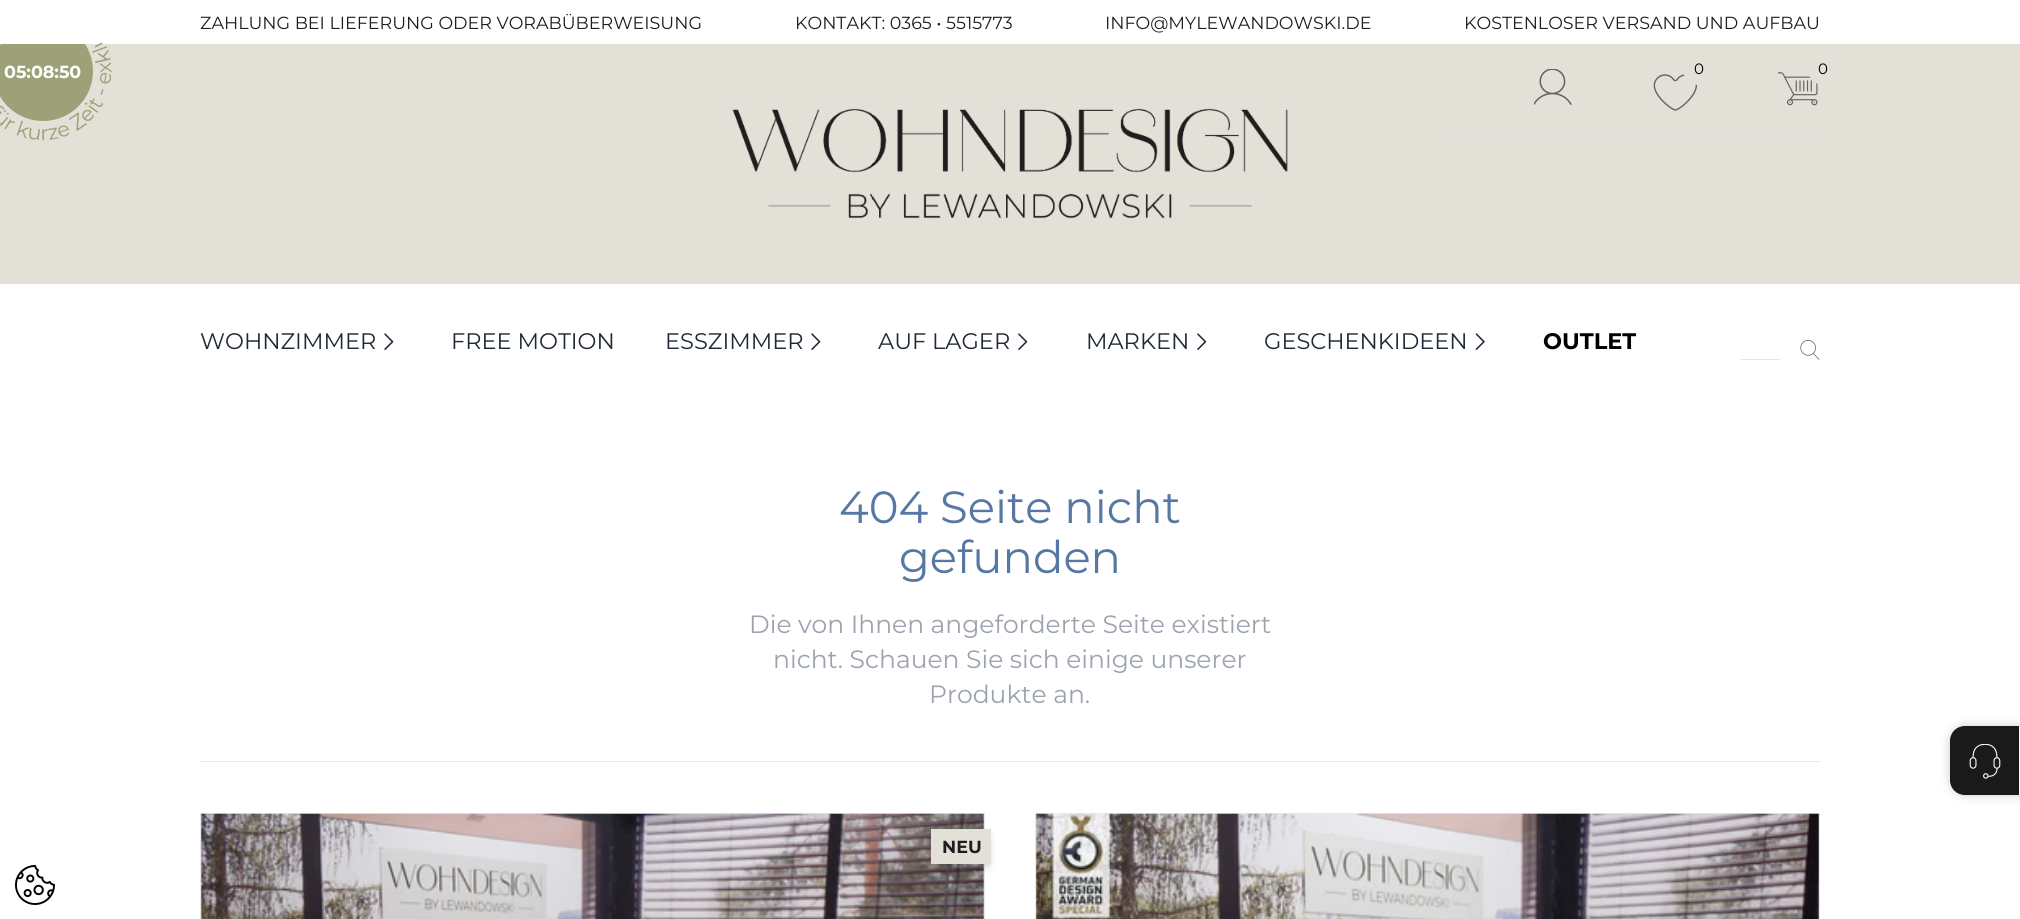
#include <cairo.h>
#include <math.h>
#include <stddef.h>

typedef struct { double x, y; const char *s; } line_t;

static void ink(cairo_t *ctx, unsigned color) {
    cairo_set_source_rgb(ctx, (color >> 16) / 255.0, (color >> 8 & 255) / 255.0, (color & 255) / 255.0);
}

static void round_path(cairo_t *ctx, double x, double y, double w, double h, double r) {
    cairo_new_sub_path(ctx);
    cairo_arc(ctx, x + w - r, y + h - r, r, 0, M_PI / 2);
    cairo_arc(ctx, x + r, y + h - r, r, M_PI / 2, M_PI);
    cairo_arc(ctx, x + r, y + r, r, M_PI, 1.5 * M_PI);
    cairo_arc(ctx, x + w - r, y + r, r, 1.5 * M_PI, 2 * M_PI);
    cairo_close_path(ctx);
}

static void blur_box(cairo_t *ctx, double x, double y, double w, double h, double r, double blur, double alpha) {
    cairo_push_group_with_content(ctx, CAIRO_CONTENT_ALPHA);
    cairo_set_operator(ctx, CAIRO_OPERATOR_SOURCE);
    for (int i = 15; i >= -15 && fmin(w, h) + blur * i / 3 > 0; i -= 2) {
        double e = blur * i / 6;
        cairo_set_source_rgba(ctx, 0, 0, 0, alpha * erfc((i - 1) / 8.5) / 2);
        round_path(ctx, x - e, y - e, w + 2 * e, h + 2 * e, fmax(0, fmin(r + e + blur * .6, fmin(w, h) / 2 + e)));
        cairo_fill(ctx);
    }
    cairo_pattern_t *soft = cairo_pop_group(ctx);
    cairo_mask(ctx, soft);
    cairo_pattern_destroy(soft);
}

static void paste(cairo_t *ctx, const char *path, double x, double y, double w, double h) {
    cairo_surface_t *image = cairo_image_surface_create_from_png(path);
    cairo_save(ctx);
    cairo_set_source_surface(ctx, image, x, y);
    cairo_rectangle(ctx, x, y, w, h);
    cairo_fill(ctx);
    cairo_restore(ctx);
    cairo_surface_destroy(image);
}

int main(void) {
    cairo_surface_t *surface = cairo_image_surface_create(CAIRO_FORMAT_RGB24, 2020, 919);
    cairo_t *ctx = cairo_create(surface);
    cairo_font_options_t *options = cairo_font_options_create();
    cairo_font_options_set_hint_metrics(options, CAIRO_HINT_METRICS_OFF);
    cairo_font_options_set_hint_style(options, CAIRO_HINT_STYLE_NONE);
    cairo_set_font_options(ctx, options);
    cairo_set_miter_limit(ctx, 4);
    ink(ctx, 0xFFFFFF);
    cairo_paint(ctx);
    cairo_select_font_face(ctx, "Montserrat", CAIRO_FONT_SLANT_NORMAL, CAIRO_FONT_WEIGHT_NORMAL);
    cairo_set_font_size(ctx, 17.5);
    ink(ctx, 0x1E1E1E);
    {
        static const line_t items[] = {
            {200, 29, "ZAHLUNG BEI LIEFERUNG ODER VORABÜBERWEISUNG"},
            {795, 29, "KONTAKT: 0365 • 5515773"},
            {1105, 29, "INFO@MYLEWANDOWSKI.DE"},
            {1464, 29, "KOSTENLOSER VERSAND UND AUFBAU"},
        };
        for (size_t i = 0; i < sizeof items / sizeof *items; i++) {
            cairo_move_to(ctx, items[i].x, items[i].y);
            cairo_show_text(ctx, items[i].s);
        }
    }
    ink(ctx, 0xE3E0D8);
    cairo_rectangle(ctx, 0, 44, 2020, 240);
    cairo_fill(ctx);
    cairo_save(ctx);
    cairo_rectangle(ctx, 0, 44, 2020, 240);
    cairo_clip(ctx);
    ink(ctx, 0x9CA177);
    cairo_arc(ctx, 43, 71, 50, 0, 2 * M_PI);
    cairo_fill(ctx);
    cairo_restore(ctx);
    cairo_select_font_face(ctx, "Montserrat", CAIRO_FONT_SLANT_NORMAL, CAIRO_FONT_WEIGHT_BOLD);
    ink(ctx, 0xFFFFFF);
    cairo_move_to(ctx, 4, 78);
    cairo_show_text(ctx, "05:08:50");
    paste(ctx, "media/1.png", 0, 43, 112, 98);
    ink(ctx, 0xE3E4E6);
    cairo_rectangle(ctx, 1449, 128, 371, 1);
    cairo_fill(ctx);
    paste(ctx, "media/2.png", 1534, 69, 38, 36);
    paste(ctx, "media/3.png", 1653, 74, 44, 37);
    ink(ctx, 0xE3E0D8);
    cairo_arc(ctx, 1698.5, 69.5, 15.5, 0, 2 * M_PI);
    cairo_fill(ctx);
    cairo_select_font_face(ctx, "Montserrat", CAIRO_FONT_SLANT_NORMAL, CAIRO_FONT_WEIGHT_NORMAL);
    cairo_set_font_size(ctx, 15);
    ink(ctx, 0x000000);
    cairo_move_to(ctx, 1694, 74);
    cairo_show_text(ctx, "0");
    paste(ctx, "media/4.png", 1778, 72, 40, 34);
    ink(ctx, 0xE3E0D8);
    cairo_arc(ctx, 1823.5, 69.5, 15.5, 0, 2 * M_PI);
    cairo_fill(ctx);
    ink(ctx, 0x000000);
    cairo_move_to(ctx, 1818, 74);
    cairo_show_text(ctx, "0");
    paste(ctx, "media/5.png", 732, 108, 556, 111);
    cairo_set_font_size(ctx, 22.5);
    ink(ctx, 0x1F2937);
    cairo_move_to(ctx, 200, 349);
    cairo_show_text(ctx, "WOHNZIMMER");
    paste(ctx, "media/6.png", 384, 333, 10, 17);
    cairo_move_to(ctx, 451, 349);
    cairo_show_text(ctx, "FREE MOTION");
    cairo_move_to(ctx, 665, 349);
    cairo_show_text(ctx, "ESSZIMMER");
    paste(ctx, "media/7.png", 811, 333, 10, 17);
    cairo_move_to(ctx, 878, 349);
    cairo_show_text(ctx, "AUF LAGER");
    paste(ctx, "media/8.png", 1018, 333, 10, 17);
    cairo_move_to(ctx, 1086, 349);
    cairo_show_text(ctx, "MARKEN");
    paste(ctx, "media/9.png", 1197, 333, 10, 17);
    cairo_move_to(ctx, 1264, 349);
    cairo_show_text(ctx, "GESCHENKIDEEN");
    paste(ctx, "media/10.png", 1475, 333, 10, 17);
    cairo_select_font_face(ctx, "Montserrat", CAIRO_FONT_SLANT_NORMAL, CAIRO_FONT_WEIGHT_BOLD);
    ink(ctx, 0x000000);
    cairo_move_to(ctx, 1543, 349);
    cairo_show_text(ctx, "OUTLET");
    ink(ctx, 0xE3E4E6);
    cairo_rectangle(ctx, 1741, 359, 39, 1);
    cairo_fill(ctx);
    paste(ctx, "media/11.png", 1800, 340, 20, 20);
    cairo_select_font_face(ctx, "Montserrat", CAIRO_FONT_SLANT_NORMAL, CAIRO_FONT_WEIGHT_NORMAL);
    cairo_set_font_size(ctx, 45);
    ink(ctx, 0x5778A3);
    cairo_move_to(ctx, 839, 523);
    cairo_show_text(ctx, "404 Seite nicht");
    cairo_move_to(ctx, 899, 573);
    cairo_show_text(ctx, "gefunden");
    cairo_set_font_size(ctx, 25);
    ink(ctx, 0x9CA3AF);
    {
        static const line_t items[] = {
            {749, 633, "Die von Ihnen angeforderte Seite existiert"},
            {773, 668, "nicht. Schauen Sie sich einige unserer"},
            {929, 703, "Produkte an."},
        };
        for (size_t i = 0; i < sizeof items / sizeof *items; i++) {
            cairo_move_to(ctx, items[i].x, items[i].y);
            cairo_show_text(ctx, items[i].s);
        }
    }
    ink(ctx, 0xE5E7EB);
    cairo_rectangle(ctx, 200, 761, 1620, 1);
    cairo_fill(ctx);
    cairo_rectangle(ctx, 200.5, 813.5, 784, 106);
    cairo_set_line_width(ctx, 1);
    cairo_stroke(ctx);
    paste(ctx, "media/12.png", 201, 813, 783, 106);
    ink(ctx, 0x000000);
    blur_box(ctx, 934, 834, 55, 30, 0, 2.5, 0.1);
    blur_box(ctx, 933, 835, 57, 33, 0, 4, 0.1);
    ink(ctx, 0xE3E0D8);
    cairo_rectangle(ctx, 931, 829, 60, 35);
    cairo_fill(ctx);
    cairo_select_font_face(ctx, "Montserrat", CAIRO_FONT_SLANT_NORMAL, CAIRO_FONT_WEIGHT_BOLD);
    cairo_set_font_size(ctx, 17.5);
    ink(ctx, 0x1E1E1E);
    cairo_move_to(ctx, 942, 853);
    cairo_show_text(ctx, "NEU");
    cairo_rectangle(ctx, 1035.5, 813.5, 784, 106);
    ink(ctx, 0xE5E7EB);
    cairo_stroke(ctx);
    paste(ctx, "media/13.png", 1036, 813, 783, 106);
    ink(ctx, 0xCCCCCC);
    blur_box(ctx, 1950, 726, 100, 69, 15, 5, 1);
    ink(ctx, 0x1A1A1A);
    cairo_new_path(ctx);
    cairo_move_to(ctx, 1965, 726);
    cairo_line_to(ctx, 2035, 726);
    cairo_line_to(ctx, 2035, 795);
    cairo_line_to(ctx, 1965, 795);
    cairo_curve_to(ctx, 1956.5, 795, 1950, 788.5, 1950, 780);
    cairo_line_to(ctx, 1950, 741);
    cairo_curve_to(ctx, 1950, 732.5, 1956.5, 726, 1965, 726);
    cairo_close_path(ctx);
    cairo_fill(ctx);
    paste(ctx, "media/14.png", 1969, 744, 32, 35);
    ink(ctx, 0xFFFFFF);
    cairo_rectangle(ctx, 2019, 726, 1, 69);
    cairo_fill(ctx);
    paste(ctx, "media/15.png", 15, 865, 40, 40);
    cairo_surface_write_to_png(surface, "image.png");
    cairo_font_options_destroy(options);
    cairo_destroy(ctx);
    cairo_surface_destroy(surface);
    return 0;
}
